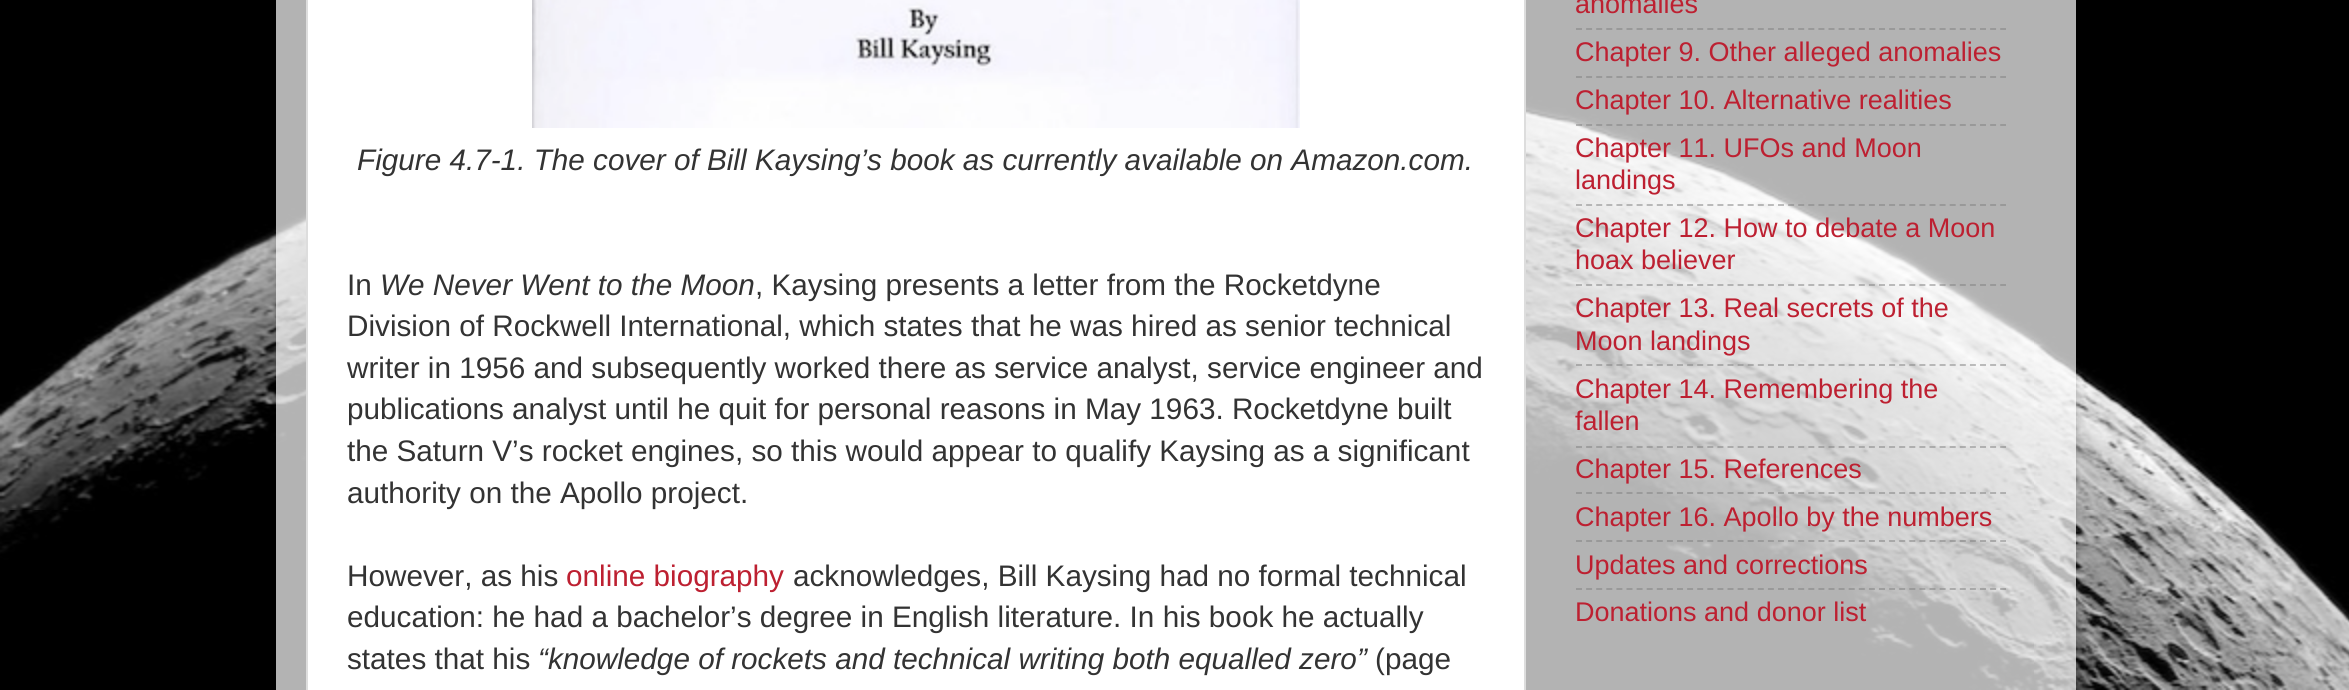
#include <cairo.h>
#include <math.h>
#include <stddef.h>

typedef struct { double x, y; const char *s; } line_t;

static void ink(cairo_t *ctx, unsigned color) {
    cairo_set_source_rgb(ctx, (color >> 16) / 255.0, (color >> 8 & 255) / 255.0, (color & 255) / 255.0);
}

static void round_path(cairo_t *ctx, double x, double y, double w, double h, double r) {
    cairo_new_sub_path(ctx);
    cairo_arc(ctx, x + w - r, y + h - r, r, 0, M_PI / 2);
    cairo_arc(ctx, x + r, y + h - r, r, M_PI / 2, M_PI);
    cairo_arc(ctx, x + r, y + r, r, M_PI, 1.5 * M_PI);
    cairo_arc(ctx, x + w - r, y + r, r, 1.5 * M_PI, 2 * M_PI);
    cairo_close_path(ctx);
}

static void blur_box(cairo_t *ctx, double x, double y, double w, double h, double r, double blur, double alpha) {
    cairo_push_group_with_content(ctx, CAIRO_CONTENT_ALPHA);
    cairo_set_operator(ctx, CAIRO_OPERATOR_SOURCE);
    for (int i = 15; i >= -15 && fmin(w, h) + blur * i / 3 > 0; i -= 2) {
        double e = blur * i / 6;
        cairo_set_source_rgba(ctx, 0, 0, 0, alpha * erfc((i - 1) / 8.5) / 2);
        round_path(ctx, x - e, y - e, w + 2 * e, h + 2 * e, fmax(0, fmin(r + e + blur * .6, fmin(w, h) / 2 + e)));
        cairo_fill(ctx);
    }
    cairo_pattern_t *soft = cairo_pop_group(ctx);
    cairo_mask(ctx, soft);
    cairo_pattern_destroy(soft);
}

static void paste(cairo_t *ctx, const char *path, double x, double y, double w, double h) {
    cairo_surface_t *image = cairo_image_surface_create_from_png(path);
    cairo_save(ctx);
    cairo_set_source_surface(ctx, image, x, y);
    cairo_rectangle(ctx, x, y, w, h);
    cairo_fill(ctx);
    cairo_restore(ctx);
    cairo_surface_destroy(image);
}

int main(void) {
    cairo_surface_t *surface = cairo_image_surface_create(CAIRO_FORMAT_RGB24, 2349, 690);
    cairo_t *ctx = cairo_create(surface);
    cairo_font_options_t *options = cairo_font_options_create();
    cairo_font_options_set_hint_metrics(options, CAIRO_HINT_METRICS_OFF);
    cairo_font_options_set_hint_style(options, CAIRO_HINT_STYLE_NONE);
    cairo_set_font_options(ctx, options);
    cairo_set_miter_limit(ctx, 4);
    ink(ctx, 0xFFFFFF);
    cairo_paint(ctx);
    paste(ctx, "media/1.png", 0, 0, 2349, 690);
    cairo_save(ctx);
    cairo_set_fill_rule(ctx, CAIRO_FILL_RULE_EVEN_ODD);
    cairo_new_path(ctx);
    cairo_move_to(ctx, 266, 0);
    cairo_line_to(ctx, 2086, 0);
    cairo_line_to(ctx, 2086, 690);
    cairo_line_to(ctx, 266, 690);
    cairo_close_path(ctx);
    cairo_move_to(ctx, 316, -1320);
    cairo_line_to(ctx, 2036, -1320);
    cairo_curve_to(ctx, 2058, -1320, 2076, -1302, 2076, -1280);
    cairo_line_to(ctx, 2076, 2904);
    cairo_line_to(ctx, 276, 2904);
    cairo_line_to(ctx, 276, -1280);
    cairo_curve_to(ctx, 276, -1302, 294, -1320, 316, -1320);
    cairo_close_path(ctx);
    cairo_clip(ctx);
    ink(ctx, 0x000000);
    blur_box(ctx, 276, -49, 1800, 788, 40, 3, 0.15);
    cairo_restore(ctx);
    cairo_set_source_rgba(ctx, 1, 1, 1, 0.7);
    cairo_rectangle(ctx, 276, 0, 1800, 690);
    cairo_fill(ctx);
    ink(ctx, 0xFFFFFF);
    cairo_rectangle(ctx, 307, -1, 1218, 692);
    cairo_fill_preserve(ctx);
    ink(ctx, 0xDDDDDD);
    cairo_stroke(ctx);
    paste(ctx, "media/2.png", 532, 0, 768, 128);
    cairo_select_font_face(ctx, "Liberation Sans", CAIRO_FONT_SLANT_ITALIC, CAIRO_FONT_WEIGHT_NORMAL);
    cairo_set_font_size(ctx, 29.7);
    ink(ctx, 0x333333);
    cairo_move_to(ctx, 357, 170);
    cairo_show_text(ctx, "Figure 4.7-1. The cover of Bill Kaysing’s book as currently available on Amazon.com.");
    cairo_select_font_face(ctx, "Liberation Sans", CAIRO_FONT_SLANT_NORMAL, CAIRO_FONT_WEIGHT_NORMAL);
    cairo_move_to(ctx, 347, 295);
    cairo_show_text(ctx, "In");
    cairo_select_font_face(ctx, "Liberation Sans", CAIRO_FONT_SLANT_ITALIC, CAIRO_FONT_WEIGHT_NORMAL);
    cairo_move_to(ctx, 380, 295);
    cairo_show_text(ctx, "We Never Went to the Moon");
    cairo_select_font_face(ctx, "Liberation Sans", CAIRO_FONT_SLANT_NORMAL, CAIRO_FONT_WEIGHT_NORMAL);
    {
        static const line_t items[] = {
            {755, 295, ", Kaysing presents a letter from the Rocketdyne"},
            {347, 336, "Division of Rockwell International, which states that he was hired as senior technical"},
            {347, 378, "writer in 1956 and subsequently worked there as service analyst, service engineer and"},
            {347, 419, "publications analyst until he quit for personal reasons in May 1963. Rocketdyne built"},
            {347, 461, "the Saturn V’s rocket engines, so this would appear to qualify Kaysing as a significant"},
            {347, 503, "authority on the Apollo project."},
            {347, 586, "However, as his"},
        };
        for (size_t i = 0; i < sizeof items / sizeof *items; i++) {
            cairo_move_to(ctx, items[i].x, items[i].y);
            cairo_show_text(ctx, items[i].s);
        }
    }
    ink(ctx, 0xBD2031);
    cairo_move_to(ctx, 566, 586);
    cairo_show_text(ctx, "online biography");
    ink(ctx, 0x333333);
    {
        static const line_t items[] = {
            {793, 586, "acknowledges, Bill Kaysing had no formal technical"},
            {347, 627, "education: he had a bachelor’s degree in English literature. In his book he actually"},
            {347, 669, "states that his"},
        };
        for (size_t i = 0; i < sizeof items / sizeof *items; i++) {
            cairo_move_to(ctx, items[i].x, items[i].y);
            cairo_show_text(ctx, items[i].s);
        }
    }
    cairo_select_font_face(ctx, "Liberation Sans", CAIRO_FONT_SLANT_ITALIC, CAIRO_FONT_WEIGHT_NORMAL);
    cairo_move_to(ctx, 538, 669);
    cairo_show_text(ctx, "“knowledge of rockets and technical writing both equalled zero”");
    cairo_select_font_face(ctx, "Liberation Sans", CAIRO_FONT_SLANT_NORMAL, CAIRO_FONT_WEIGHT_NORMAL);
    cairo_move_to(ctx, 1375, 669);
    cairo_show_text(ctx, "(page");
    cairo_set_font_size(ctx, 27);
    ink(ctx, 0xBD2031);
    cairo_move_to(ctx, 1575, 13);
    cairo_show_text(ctx, "anomalies");
    cairo_new_path(ctx);
    cairo_move_to(ctx, 1576, 29);
    cairo_line_to(ctx, 2006, 29);
    ink(ctx, 0x999999);
    cairo_set_dash(ctx, (double[]){6, 4.1}, 2, 0);
    cairo_stroke(ctx);
    ink(ctx, 0xBD2031);
    cairo_move_to(ctx, 1575, 61);
    cairo_show_text(ctx, "Chapter 9. Other alleged anomalies");
    cairo_new_path(ctx);
    cairo_move_to(ctx, 1576, 77);
    cairo_line_to(ctx, 2006, 77);
    ink(ctx, 0x999999);
    cairo_stroke(ctx);
    ink(ctx, 0xBD2031);
    cairo_move_to(ctx, 1575, 109);
    cairo_show_text(ctx, "Chapter 10. Alternative realities");
    cairo_new_path(ctx);
    cairo_move_to(ctx, 1576, 125);
    cairo_line_to(ctx, 2006, 125);
    cairo_set_source_rgba(ctx, 0.502, 0.502, 0.502, 0.5);
    cairo_stroke(ctx);
    ink(ctx, 0xBD2031);
    cairo_move_to(ctx, 1575, 157);
    cairo_show_text(ctx, "Chapter 11. UFOs and Moon");
    cairo_move_to(ctx, 1575, 189);
    cairo_show_text(ctx, "landings");
    cairo_new_path(ctx);
    cairo_move_to(ctx, 1576, 205);
    cairo_line_to(ctx, 2006, 205);
    cairo_set_source_rgba(ctx, 0.502, 0.502, 0.502, 0.5);
    cairo_stroke(ctx);
    ink(ctx, 0xBD2031);
    cairo_move_to(ctx, 1575, 237);
    cairo_show_text(ctx, "Chapter 12. How to debate a Moon");
    cairo_move_to(ctx, 1575, 269);
    cairo_show_text(ctx, "hoax believer");
    cairo_new_path(ctx);
    cairo_move_to(ctx, 1576, 285);
    cairo_line_to(ctx, 2006, 285);
    cairo_set_source_rgba(ctx, 0.502, 0.502, 0.502, 0.5);
    cairo_stroke(ctx);
    ink(ctx, 0xBD2031);
    cairo_move_to(ctx, 1575, 317);
    cairo_show_text(ctx, "Chapter 13. Real secrets of the");
    cairo_move_to(ctx, 1575, 350);
    cairo_show_text(ctx, "Moon landings");
    cairo_new_path(ctx);
    cairo_move_to(ctx, 1576, 365);
    cairo_line_to(ctx, 2006, 365);
    cairo_set_source_rgba(ctx, 0.502, 0.502, 0.502, 0.5);
    cairo_stroke(ctx);
    ink(ctx, 0xBD2031);
    cairo_move_to(ctx, 1575, 398);
    cairo_show_text(ctx, "Chapter 14. Remembering the");
    cairo_move_to(ctx, 1575, 430);
    cairo_show_text(ctx, "fallen");
    cairo_new_path(ctx);
    cairo_move_to(ctx, 1576, 447);
    cairo_line_to(ctx, 2006, 447);
    cairo_set_source_rgba(ctx, 0.502, 0.502, 0.502, 0.5);
    cairo_stroke(ctx);
    ink(ctx, 0xBD2031);
    cairo_move_to(ctx, 1575, 478);
    cairo_show_text(ctx, "Chapter 15. References");
    cairo_new_path(ctx);
    cairo_move_to(ctx, 1576, 493);
    cairo_line_to(ctx, 2006, 493);
    cairo_set_source_rgba(ctx, 0.502, 0.502, 0.502, 0.5);
    cairo_stroke(ctx);
    ink(ctx, 0xBD2031);
    cairo_move_to(ctx, 1575, 526);
    cairo_show_text(ctx, "Chapter 16. Apollo by the numbers");
    cairo_new_path(ctx);
    cairo_move_to(ctx, 1576, 541);
    cairo_line_to(ctx, 2006, 541);
    cairo_set_source_rgba(ctx, 0.502, 0.502, 0.502, 0.5);
    cairo_stroke(ctx);
    ink(ctx, 0xBD2031);
    cairo_move_to(ctx, 1575, 574);
    cairo_show_text(ctx, "Updates and corrections");
    cairo_new_path(ctx);
    cairo_move_to(ctx, 1576, 589);
    cairo_line_to(ctx, 2006, 589);
    cairo_set_source_rgba(ctx, 0.502, 0.502, 0.502, 0.5);
    cairo_stroke(ctx);
    ink(ctx, 0xBD2031);
    cairo_move_to(ctx, 1575, 621);
    cairo_show_text(ctx, "Donations and donor list");
    cairo_surface_write_to_png(surface, "image.png");
    cairo_font_options_destroy(options);
    cairo_destroy(ctx);
    cairo_surface_destroy(surface);
    return 0;
}
